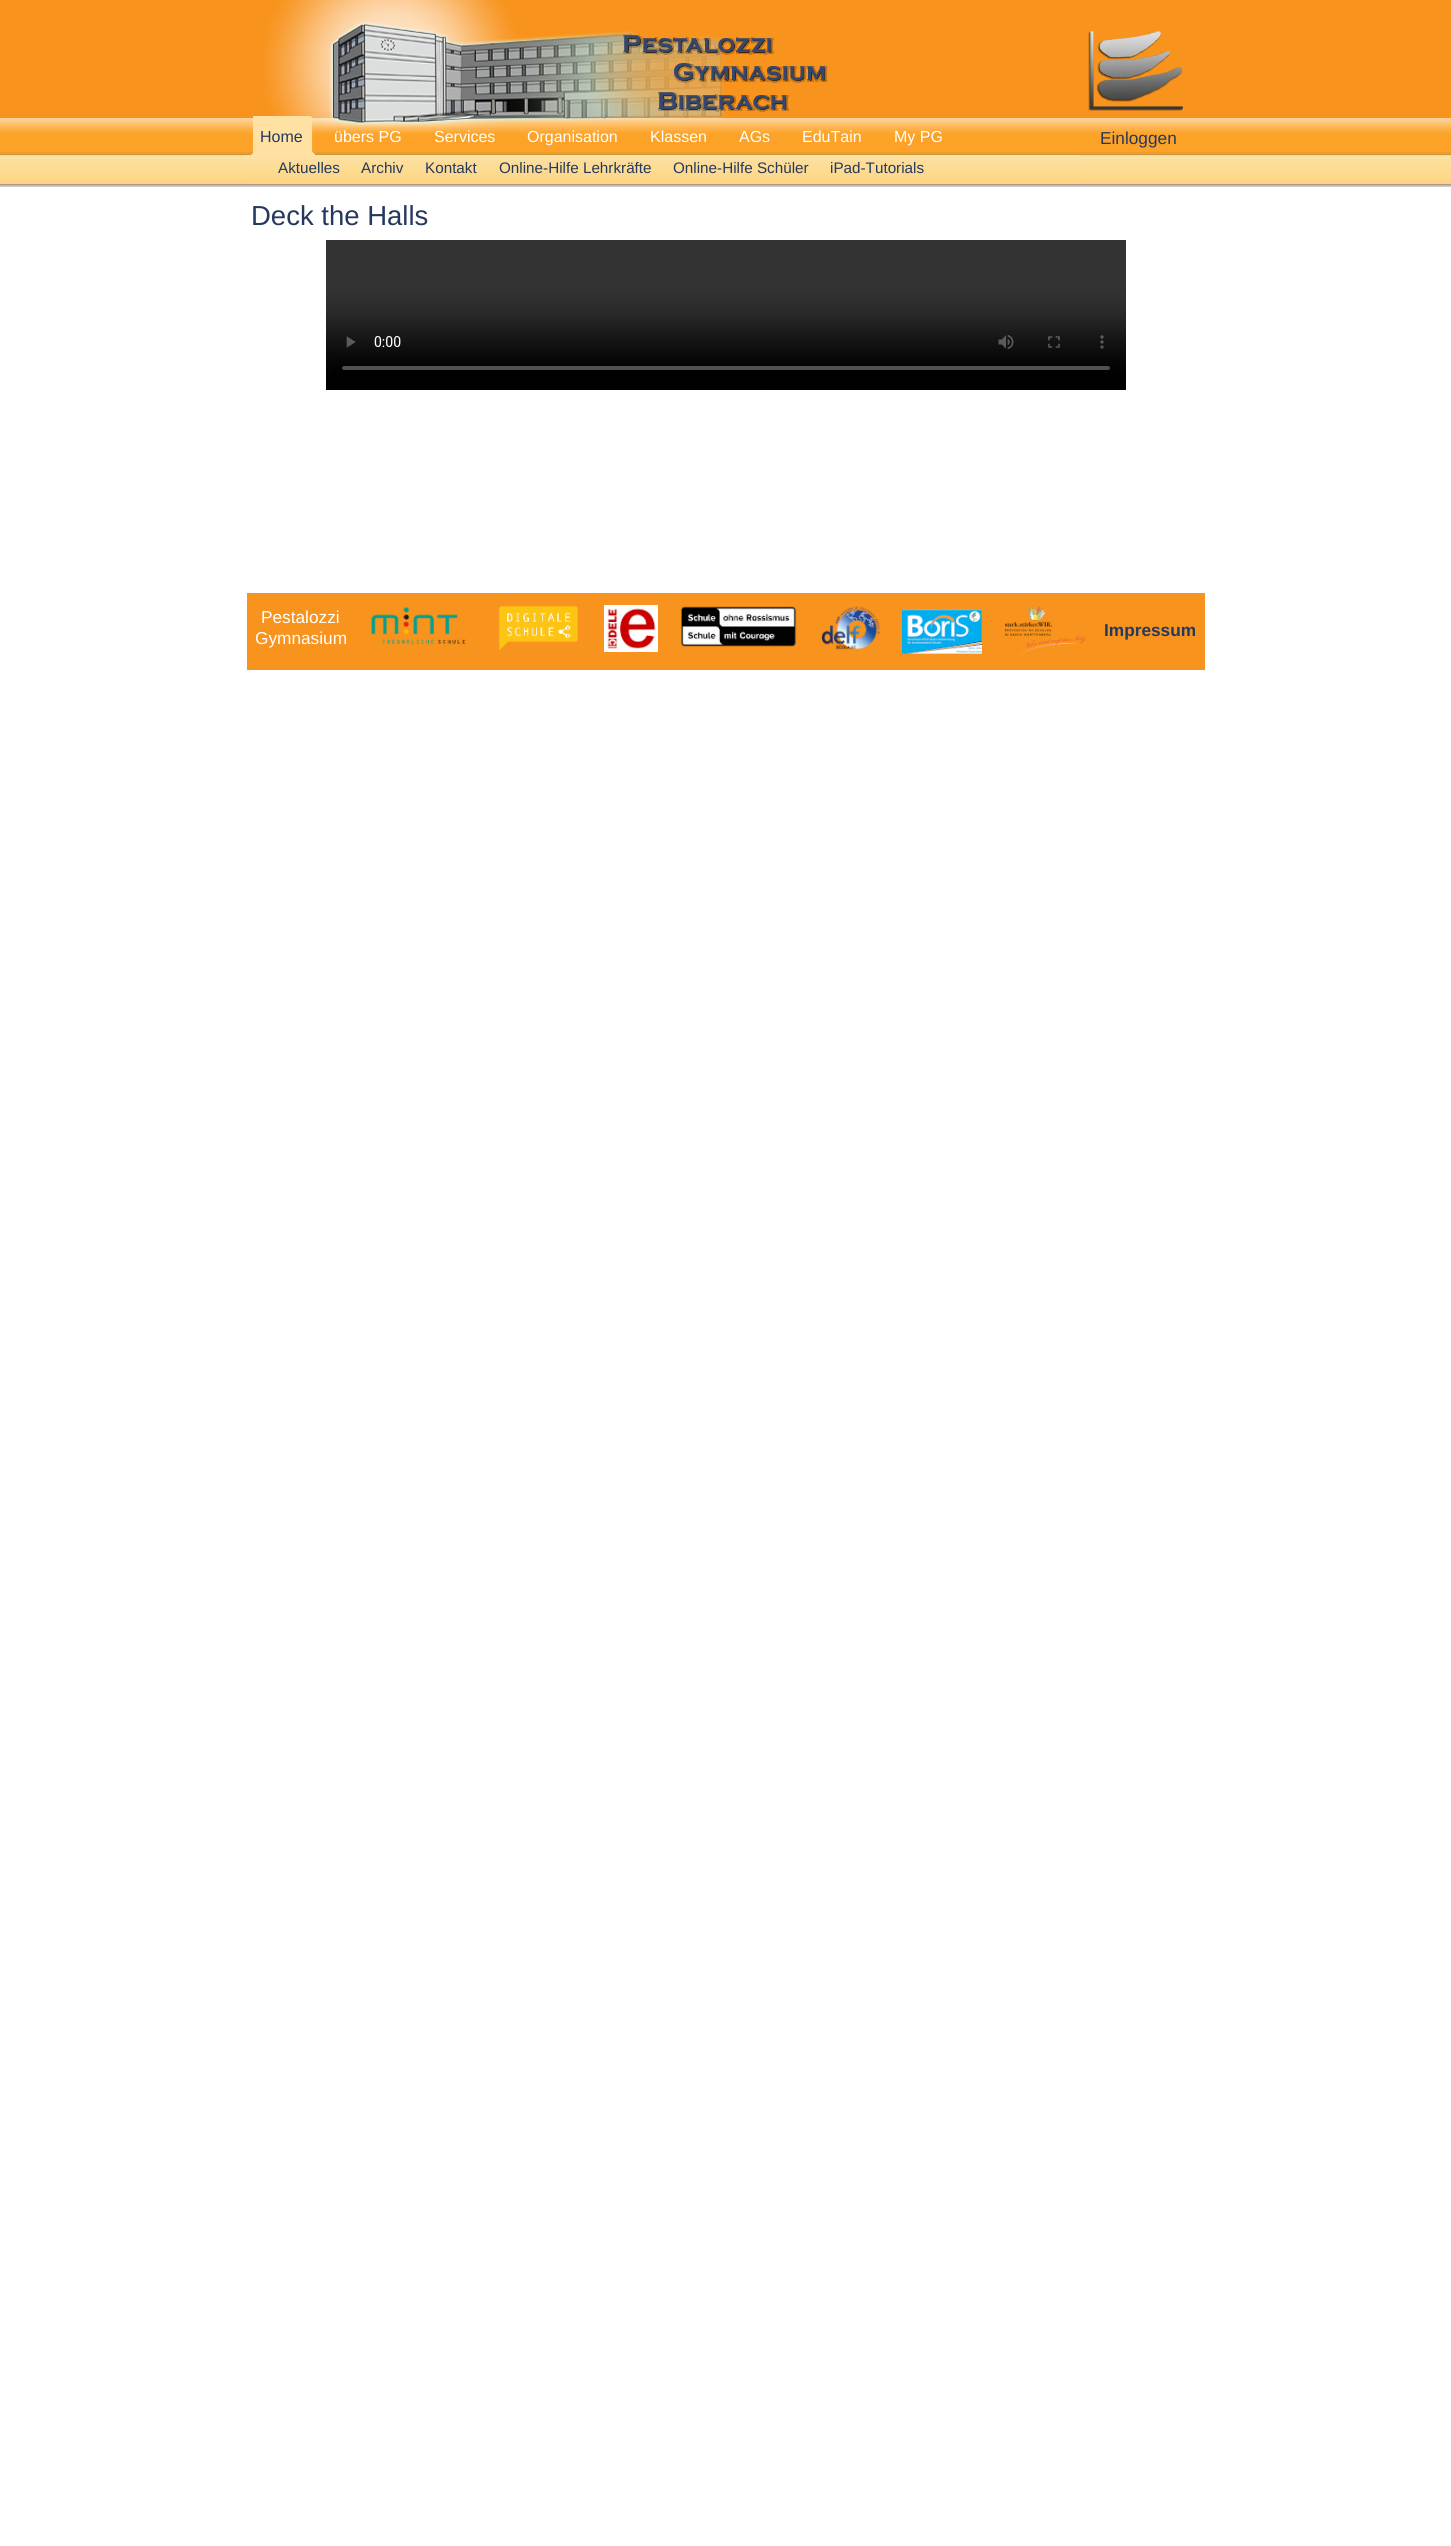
#include <cairo.h>
#include <math.h>
#include <stddef.h>

typedef struct { double x, y; const char *s; } line_t;

static void ink(cairo_t *ctx, unsigned color) {
    cairo_set_source_rgb(ctx, (color >> 16) / 255.0, (color >> 8 & 255) / 255.0, (color & 255) / 255.0);
}

static void paste(cairo_t *ctx, const char *path, double x, double y, double w, double h) {
    cairo_surface_t *image = cairo_image_surface_create_from_png(path);
    cairo_save(ctx);
    cairo_set_source_surface(ctx, image, x, y);
    cairo_rectangle(ctx, x, y, w, h);
    cairo_fill(ctx);
    cairo_restore(ctx);
    cairo_surface_destroy(image);
}

int main(void) {
    cairo_surface_t *surface = cairo_image_surface_create(CAIRO_FORMAT_RGB24, 1451, 2546);
    cairo_t *ctx = cairo_create(surface);
    cairo_font_options_t *options = cairo_font_options_create();
    cairo_font_options_set_hint_metrics(options, CAIRO_HINT_METRICS_OFF);
    cairo_font_options_set_hint_style(options, CAIRO_HINT_STYLE_NONE);
    cairo_set_font_options(ctx, options);
    cairo_set_miter_limit(ctx, 4);
    ink(ctx, 0xFFFFFF);
    cairo_paint(ctx);
    paste(ctx, "media/1.png", 0, 0, 1451, 187);
    paste(ctx, "media/2.png", 264, 0, 564, 133);
    paste(ctx, "media/3.png", 1088, 31, 95, 80);
    cairo_select_font_face(ctx, "Liberation Sans", CAIRO_FONT_SLANT_NORMAL, CAIRO_FONT_WEIGHT_NORMAL);
    cairo_set_font_size(ctx, 16);
    ink(ctx, 0xFFFFFF);
    {
        static const line_t items[] = {
            {334, 142, "übers PG"},
            {434, 142, "Services"},
            {527, 142, "Organisation"},
            {650, 142, "Klassen"},
            {739, 142, "AGs"},
            {802, 142, "EduTain"},
            {894, 142, "My PG"},
        };
        for (size_t i = 0; i < sizeof items / sizeof *items; i++) {
            cairo_move_to(ctx, items[i].x, items[i].y);
            cairo_show_text(ctx, items[i].s);
        }
    }
    paste(ctx, "media/4.png", 251, 116, 2, 39);
    paste(ctx, "media/5.png", 253, 116, 63, 39);
    ink(ctx, 0x25395E);
    cairo_move_to(ctx, 260, 142);
    cairo_show_text(ctx, "Home");
    paste(ctx, "media/6.png", 246, 155, 835, 29);
    cairo_set_font_size(ctx, 15.25);
    {
        static const line_t items[] = {
            {278, 173, "Aktuelles"},
            {361, 173, "Archiv"},
            {425, 173, "Kontakt"},
            {499, 173, "Online-Hilfe Lehrkräfte"},
            {673, 173, "Online-Hilfe Schüler"},
            {830, 173, "iPad-Tutorials"},
        };
        for (size_t i = 0; i < sizeof items / sizeof *items; i++) {
            cairo_move_to(ctx, items[i].x, items[i].y);
            cairo_show_text(ctx, items[i].s);
        }
    }
    cairo_set_font_size(ctx, 17.25);
    cairo_move_to(ctx, 1100, 144);
    cairo_show_text(ctx, "Einloggen");
    cairo_set_font_size(ctx, 27.5);
    cairo_move_to(ctx, 251, 225);
    cairo_show_text(ctx, "Deck the Halls");
    paste(ctx, "media/7.png", 326, 240, 800, 150);
    ink(ctx, 0xF8931D);
    cairo_rectangle(ctx, 247, 593, 958, 77);
    cairo_fill(ctx);
    cairo_set_font_size(ctx, 17.25);
    ink(ctx, 0xFFFFFF);
    cairo_move_to(ctx, 261, 623);
    cairo_show_text(ctx, "Pestalozzi");
    cairo_move_to(ctx, 255, 644);
    cairo_show_text(ctx, "Gymnasium");
    paste(ctx, "media/8.png", 371, 606, 95, 39);
    paste(ctx, "media/9.png", 499, 606, 80, 44);
    paste(ctx, "media/10.png", 604, 605, 54, 47);
    paste(ctx, "media/11.png", 681, 606, 116, 41);
    paste(ctx, "media/12.png", 821, 606, 59, 44);
    paste(ctx, "media/13.png", 902, 609, 80, 45);
    paste(ctx, "media/14.png", 1005, 606, 81, 52);
    cairo_select_font_face(ctx, "Liberation Sans", CAIRO_FONT_SLANT_NORMAL, CAIRO_FONT_WEIGHT_BOLD);
    ink(ctx, 0x25395E);
    cairo_move_to(ctx, 1104, 636);
    cairo_show_text(ctx, "Impressum");
    cairo_surface_write_to_png(surface, "image.png");
    cairo_font_options_destroy(options);
    cairo_destroy(ctx);
    cairo_surface_destroy(surface);
    return 0;
}
